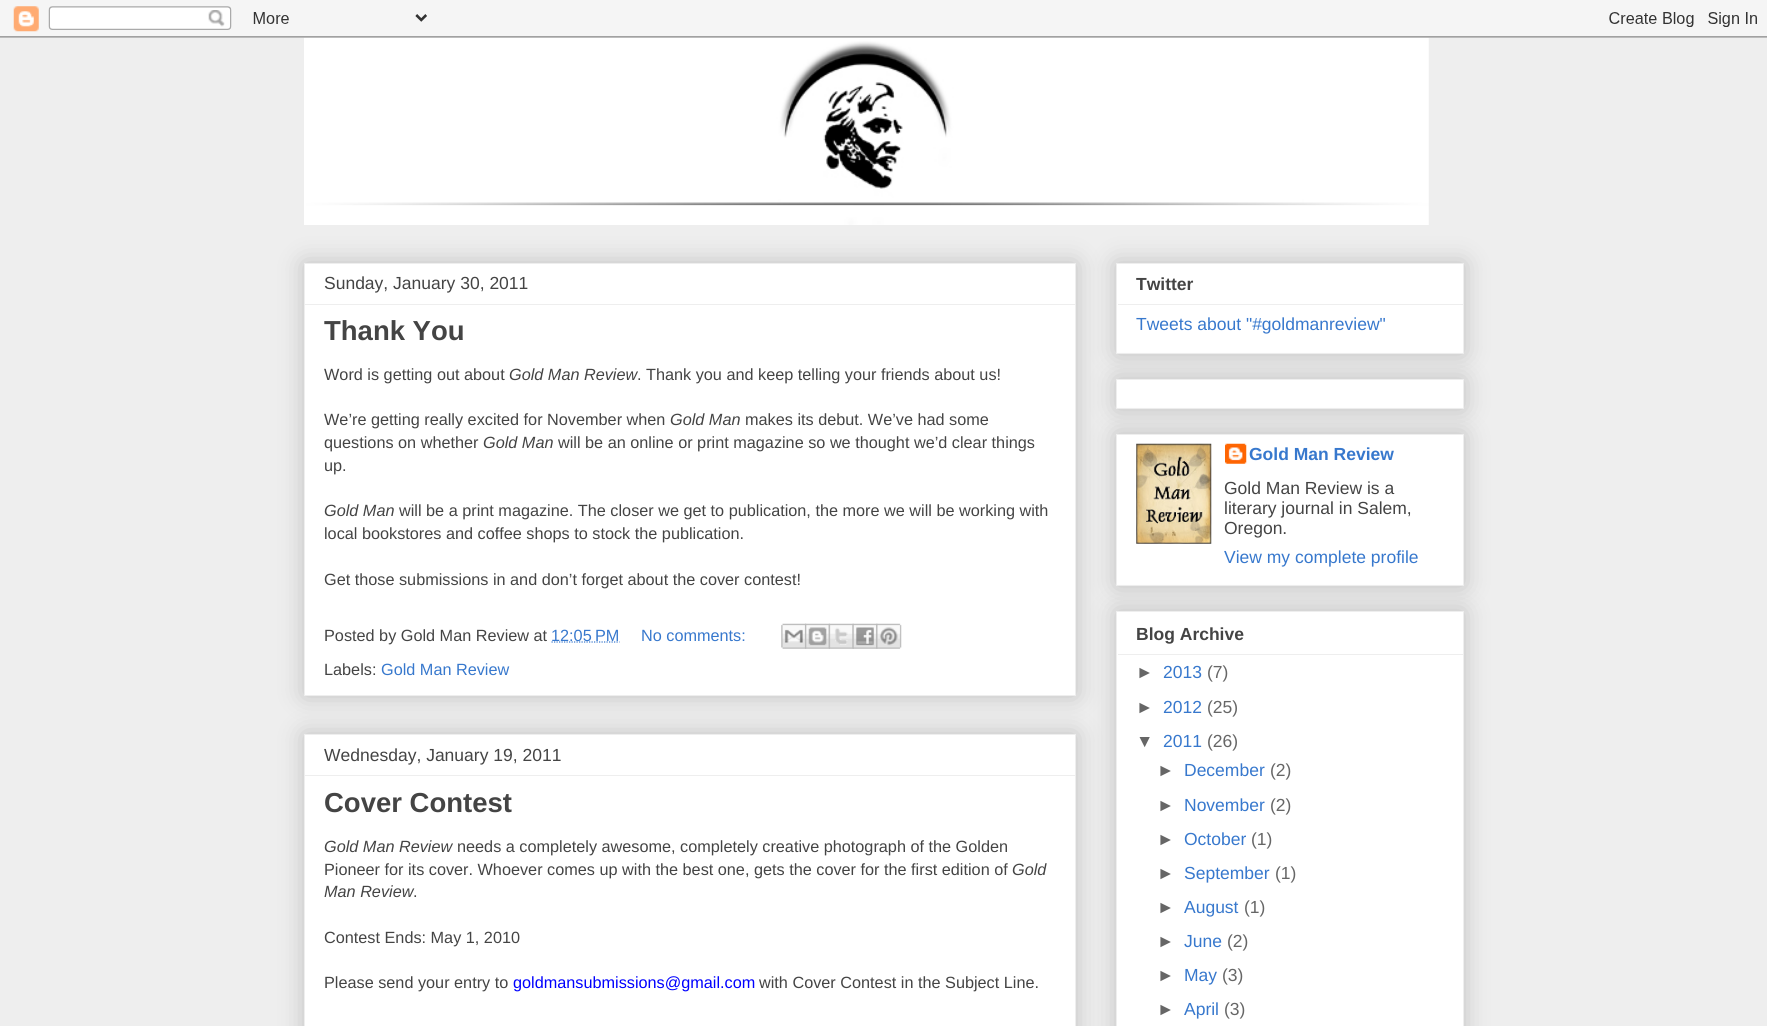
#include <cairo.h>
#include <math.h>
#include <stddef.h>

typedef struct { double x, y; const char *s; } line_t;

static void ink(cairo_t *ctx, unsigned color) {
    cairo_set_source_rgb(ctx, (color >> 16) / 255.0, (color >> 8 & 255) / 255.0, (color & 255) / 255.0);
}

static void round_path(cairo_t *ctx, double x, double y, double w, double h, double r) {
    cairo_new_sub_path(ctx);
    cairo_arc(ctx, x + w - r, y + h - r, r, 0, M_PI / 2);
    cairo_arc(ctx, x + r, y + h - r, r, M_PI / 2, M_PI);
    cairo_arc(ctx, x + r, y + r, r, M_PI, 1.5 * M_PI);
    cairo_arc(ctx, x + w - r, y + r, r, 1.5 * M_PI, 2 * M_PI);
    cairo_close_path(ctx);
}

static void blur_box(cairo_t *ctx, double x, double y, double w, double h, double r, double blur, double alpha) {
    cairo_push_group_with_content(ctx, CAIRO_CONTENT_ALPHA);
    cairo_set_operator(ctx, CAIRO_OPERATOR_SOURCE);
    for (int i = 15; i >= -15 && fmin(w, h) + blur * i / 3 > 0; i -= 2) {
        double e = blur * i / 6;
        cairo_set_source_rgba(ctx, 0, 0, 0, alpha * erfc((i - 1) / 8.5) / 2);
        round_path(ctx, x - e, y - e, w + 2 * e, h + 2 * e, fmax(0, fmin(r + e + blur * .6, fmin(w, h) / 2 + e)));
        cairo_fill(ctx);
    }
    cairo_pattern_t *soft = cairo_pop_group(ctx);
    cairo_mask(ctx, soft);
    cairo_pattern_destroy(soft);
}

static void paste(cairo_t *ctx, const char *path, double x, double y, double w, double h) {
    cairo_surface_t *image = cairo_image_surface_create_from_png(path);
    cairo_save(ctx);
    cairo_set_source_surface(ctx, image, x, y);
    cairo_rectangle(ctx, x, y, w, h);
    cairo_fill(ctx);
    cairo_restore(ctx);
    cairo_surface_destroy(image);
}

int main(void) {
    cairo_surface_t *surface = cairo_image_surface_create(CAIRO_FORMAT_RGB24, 1767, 1026);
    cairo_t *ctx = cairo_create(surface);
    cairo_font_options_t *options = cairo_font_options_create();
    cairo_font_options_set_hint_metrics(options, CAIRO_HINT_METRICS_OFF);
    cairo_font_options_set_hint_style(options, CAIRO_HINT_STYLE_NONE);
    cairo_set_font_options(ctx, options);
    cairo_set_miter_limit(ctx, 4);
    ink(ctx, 0xEEEEEE);
    cairo_paint(ctx);
    paste(ctx, "media/2.png", 304, 37, 1125, 188);
    paste(ctx, "media/1.png", 0, 0, 1767, 38);
    ink(ctx, 0x000000);
    blur_box(ctx, 304, 263, 772, 433, 0, 12.5, 0.2);
    ink(ctx, 0xFFFFFF);
    cairo_rectangle(ctx, 304.5, 263.5, 771, 432);
    cairo_fill_preserve(ctx);
    ink(ctx, 0xEEEEEE);
    cairo_set_line_width(ctx, 1);
    cairo_stroke(ctx);
    cairo_select_font_face(ctx, "Liberation Sans", CAIRO_FONT_SLANT_NORMAL, CAIRO_FONT_WEIGHT_NORMAL);
    cairo_set_font_size(ctx, 17.5);
    ink(ctx, 0x444444);
    cairo_move_to(ctx, 324, 289);
    cairo_show_text(ctx, "Sunday, January 30, 2011");
    ink(ctx, 0xEEEEEE);
    cairo_rectangle(ctx, 305, 304, 770, 1);
    cairo_fill(ctx);
    cairo_select_font_face(ctx, "Liberation Sans", CAIRO_FONT_SLANT_NORMAL, CAIRO_FONT_WEIGHT_BOLD);
    cairo_set_font_size(ctx, 27.5);
    ink(ctx, 0x444444);
    cairo_move_to(ctx, 324, 340);
    cairo_show_text(ctx, "Thank You");
    cairo_select_font_face(ctx, "Liberation Sans", CAIRO_FONT_SLANT_NORMAL, CAIRO_FONT_WEIGHT_NORMAL);
    cairo_set_font_size(ctx, 16.25);
    cairo_move_to(ctx, 324, 380);
    cairo_show_text(ctx, "Word is getting out about");
    cairo_select_font_face(ctx, "Liberation Sans", CAIRO_FONT_SLANT_ITALIC, CAIRO_FONT_WEIGHT_NORMAL);
    cairo_move_to(ctx, 509, 380);
    cairo_show_text(ctx, "Gold Man Review");
    cairo_select_font_face(ctx, "Liberation Sans", CAIRO_FONT_SLANT_NORMAL, CAIRO_FONT_WEIGHT_NORMAL);
    cairo_move_to(ctx, 637, 380);
    cairo_show_text(ctx, ". Thank you and keep telling your friends about us!");
    cairo_move_to(ctx, 324, 425);
    cairo_show_text(ctx, "We’re getting really excited for November when");
    cairo_select_font_face(ctx, "Liberation Sans", CAIRO_FONT_SLANT_ITALIC, CAIRO_FONT_WEIGHT_NORMAL);
    cairo_move_to(ctx, 670, 425);
    cairo_show_text(ctx, "Gold Man");
    cairo_select_font_face(ctx, "Liberation Sans", CAIRO_FONT_SLANT_NORMAL, CAIRO_FONT_WEIGHT_NORMAL);
    cairo_move_to(ctx, 745, 425);
    cairo_show_text(ctx, "makes its debut. We’ve had some");
    cairo_move_to(ctx, 324, 448);
    cairo_show_text(ctx, "questions on whether");
    cairo_select_font_face(ctx, "Liberation Sans", CAIRO_FONT_SLANT_ITALIC, CAIRO_FONT_WEIGHT_NORMAL);
    cairo_move_to(ctx, 483, 448);
    cairo_show_text(ctx, "Gold Man");
    cairo_select_font_face(ctx, "Liberation Sans", CAIRO_FONT_SLANT_NORMAL, CAIRO_FONT_WEIGHT_NORMAL);
    cairo_move_to(ctx, 558, 448);
    cairo_show_text(ctx, "will be an online or print magazine so we thought we’d clear things");
    cairo_move_to(ctx, 324, 471);
    cairo_show_text(ctx, "up.");
    cairo_select_font_face(ctx, "Liberation Sans", CAIRO_FONT_SLANT_ITALIC, CAIRO_FONT_WEIGHT_NORMAL);
    cairo_move_to(ctx, 324, 516);
    cairo_show_text(ctx, "Gold Man");
    cairo_select_font_face(ctx, "Liberation Sans", CAIRO_FONT_SLANT_NORMAL, CAIRO_FONT_WEIGHT_NORMAL);
    {
        static const line_t items[] = {
            {399, 516, "will be a print magazine. The closer we get to publication, the more we will be working with"},
            {324, 539, "local bookstores and coffee shops to stock the publication."},
            {324, 585, "Get those submissions in and don’t forget about the cover contest!"},
            {324, 641, "Posted by Gold Man Review at"},
        };
        for (size_t i = 0; i < sizeof items / sizeof *items; i++) {
            cairo_move_to(ctx, items[i].x, items[i].y);
            cairo_show_text(ctx, items[i].s);
        }
    }
    cairo_new_path(ctx);
    cairo_move_to(ctx, 551.5, 642);
    cairo_line_to(ctx, 619.5, 642);
    ink(ctx, 0x3778CD);
    cairo_set_line_width(ctx, 1.2);
    cairo_set_dash(ctx, (double[]){1.25, 1.25}, 2, 0);
    cairo_stroke(ctx);
    cairo_move_to(ctx, 551, 641);
    cairo_show_text(ctx, "12:05 PM");
    cairo_move_to(ctx, 641, 641);
    cairo_show_text(ctx, "No comments:");
    paste(ctx, "media/3.png", 781, 623, 26, 26);
    paste(ctx, "media/4.png", 805, 623, 25, 26);
    paste(ctx, "media/5.png", 828, 623, 26, 26);
    paste(ctx, "media/6.png", 852, 623, 26, 26);
    paste(ctx, "media/7.png", 876, 623, 26, 26);
    ink(ctx, 0x444444);
    cairo_move_to(ctx, 324, 675);
    cairo_show_text(ctx, "Labels:");
    ink(ctx, 0x3778CD);
    cairo_move_to(ctx, 381, 675);
    cairo_show_text(ctx, "Gold Man Review");
    ink(ctx, 0x000000);
    blur_box(ctx, 304, 734, 772, 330, 0, 12.5, 0.2);
    ink(ctx, 0xFFFFFF);
    cairo_rectangle(ctx, 304.5, 734.5, 771, 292);
    cairo_fill_preserve(ctx);
    ink(ctx, 0xEEEEEE);
    cairo_set_line_width(ctx, 1);
    cairo_set_dash(ctx, NULL, 0, 0);
    cairo_stroke(ctx);
    cairo_set_font_size(ctx, 17.5);
    ink(ctx, 0x444444);
    cairo_move_to(ctx, 324, 761);
    cairo_show_text(ctx, "Wednesday, January 19, 2011");
    ink(ctx, 0xEEEEEE);
    cairo_rectangle(ctx, 305, 775, 770, 1);
    cairo_fill(ctx);
    cairo_select_font_face(ctx, "Liberation Sans", CAIRO_FONT_SLANT_NORMAL, CAIRO_FONT_WEIGHT_BOLD);
    cairo_set_font_size(ctx, 27.5);
    ink(ctx, 0x444444);
    cairo_move_to(ctx, 324, 812);
    cairo_show_text(ctx, "Cover Contest");
    cairo_select_font_face(ctx, "Liberation Sans", CAIRO_FONT_SLANT_ITALIC, CAIRO_FONT_WEIGHT_NORMAL);
    cairo_set_font_size(ctx, 16.25);
    cairo_move_to(ctx, 324, 852);
    cairo_show_text(ctx, "Gold Man Review");
    cairo_select_font_face(ctx, "Liberation Sans", CAIRO_FONT_SLANT_NORMAL, CAIRO_FONT_WEIGHT_NORMAL);
    cairo_move_to(ctx, 457, 852);
    cairo_show_text(ctx, "needs a completely awesome, completely creative photograph of the Golden");
    cairo_move_to(ctx, 324, 875);
    cairo_show_text(ctx, "Pioneer for its cover. Whoever comes up with the best one, gets the cover for the first edition of");
    cairo_select_font_face(ctx, "Liberation Sans", CAIRO_FONT_SLANT_ITALIC, CAIRO_FONT_WEIGHT_NORMAL);
    cairo_move_to(ctx, 1012, 875);
    cairo_show_text(ctx, "Gold");
    cairo_move_to(ctx, 324, 897);
    cairo_show_text(ctx, "Man Review");
    cairo_select_font_face(ctx, "Liberation Sans", CAIRO_FONT_SLANT_NORMAL, CAIRO_FONT_WEIGHT_NORMAL);
    {
        static const line_t items[] = {
            {413, 897, "."},
            {324, 943, "Contest Ends: May 1, 2010"},
            {324, 988, "Please send your entry to"},
        };
        for (size_t i = 0; i < sizeof items / sizeof *items; i++) {
            cairo_move_to(ctx, items[i].x, items[i].y);
            cairo_show_text(ctx, items[i].s);
        }
    }
    ink(ctx, 0x0000FF);
    cairo_move_to(ctx, 513, 988);
    cairo_show_text(ctx, "goldmansubmissions@gmail.com");
    ink(ctx, 0x444444);
    cairo_move_to(ctx, 759, 988);
    cairo_show_text(ctx, "with Cover Contest in the Subject Line.");
    ink(ctx, 0x000000);
    blur_box(ctx, 1116, 263, 348, 91, 0, 12.5, 0.2);
    ink(ctx, 0xFFFFFF);
    cairo_rectangle(ctx, 1116.5, 263.5, 347, 90);
    cairo_fill_preserve(ctx);
    ink(ctx, 0xEEEEEE);
    cairo_stroke(ctx);
    cairo_select_font_face(ctx, "Liberation Sans", CAIRO_FONT_SLANT_NORMAL, CAIRO_FONT_WEIGHT_BOLD);
    cairo_set_font_size(ctx, 17.5);
    ink(ctx, 0x444444);
    cairo_move_to(ctx, 1136, 290);
    cairo_show_text(ctx, "Twitter");
    ink(ctx, 0xEEEEEE);
    cairo_rectangle(ctx, 1118, 304, 345, 1);
    cairo_fill(ctx);
    cairo_select_font_face(ctx, "Liberation Sans", CAIRO_FONT_SLANT_NORMAL, CAIRO_FONT_WEIGHT_NORMAL);
    ink(ctx, 0x3778CD);
    cairo_move_to(ctx, 1136, 330);
    cairo_show_text(ctx, "Tweets about \"#goldmanreview\"");
    ink(ctx, 0x000000);
    blur_box(ctx, 1116, 379, 348, 30, 0, 12.5, 0.2);
    ink(ctx, 0xFFFFFF);
    cairo_rectangle(ctx, 1116.5, 379.5, 347, 29);
    cairo_fill_preserve(ctx);
    ink(ctx, 0xEEEEEE);
    cairo_stroke(ctx);
    ink(ctx, 0x000000);
    blur_box(ctx, 1116, 434, 348, 152, 0, 12.5, 0.2);
    ink(ctx, 0xFFFFFF);
    cairo_rectangle(ctx, 1116.5, 434.5, 347, 151);
    cairo_fill_preserve(ctx);
    ink(ctx, 0xEEEEEE);
    cairo_stroke(ctx);
    paste(ctx, "media/8.png", 1136, 443, 76, 101);
    paste(ctx, "media/9.png", 1225, 443, 22, 21);
    cairo_select_font_face(ctx, "Liberation Sans", CAIRO_FONT_SLANT_NORMAL, CAIRO_FONT_WEIGHT_BOLD);
    ink(ctx, 0x3778CD);
    cairo_move_to(ctx, 1249, 460);
    cairo_show_text(ctx, "Gold Man Review");
    cairo_select_font_face(ctx, "Liberation Sans", CAIRO_FONT_SLANT_NORMAL, CAIRO_FONT_WEIGHT_NORMAL);
    ink(ctx, 0x444444);
    {
        static const line_t items[] = {
            {1224, 494, "Gold Man Review is a"},
            {1224, 514, "literary journal in Salem,"},
            {1224, 534, "Oregon."},
        };
        for (size_t i = 0; i < sizeof items / sizeof *items; i++) {
            cairo_move_to(ctx, items[i].x, items[i].y);
            cairo_show_text(ctx, items[i].s);
        }
    }
    ink(ctx, 0x3778CD);
    cairo_move_to(ctx, 1224, 563);
    cairo_show_text(ctx, "View my complete profile");
    ink(ctx, 0x000000);
    blur_box(ctx, 1116, 611, 348, 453, 0, 12.5, 0.2);
    ink(ctx, 0xFFFFFF);
    cairo_rectangle(ctx, 1116.5, 611.5, 347, 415);
    cairo_fill_preserve(ctx);
    ink(ctx, 0xEEEEEE);
    cairo_stroke(ctx);
    cairo_select_font_face(ctx, "Liberation Sans", CAIRO_FONT_SLANT_NORMAL, CAIRO_FONT_WEIGHT_BOLD);
    ink(ctx, 0x444444);
    cairo_move_to(ctx, 1136, 640);
    cairo_show_text(ctx, "Blog Archive");
    ink(ctx, 0xEEEEEE);
    cairo_rectangle(ctx, 1118, 654, 345, 1);
    cairo_fill(ctx);
    cairo_select_font_face(ctx, "Liberation Sans", CAIRO_FONT_SLANT_NORMAL, CAIRO_FONT_WEIGHT_NORMAL);
    ink(ctx, 0x666666);
    cairo_move_to(ctx, 1136, 678);
    cairo_show_text(ctx, "►");
    ink(ctx, 0x3778CD);
    cairo_move_to(ctx, 1163, 678);
    cairo_show_text(ctx, "2013");
    ink(ctx, 0x666666);
    cairo_move_to(ctx, 1207, 678);
    cairo_show_text(ctx, "(7)");
    cairo_move_to(ctx, 1136, 713);
    cairo_show_text(ctx, "►");
    ink(ctx, 0x3778CD);
    cairo_move_to(ctx, 1163, 713);
    cairo_show_text(ctx, "2012");
    ink(ctx, 0x666666);
    cairo_move_to(ctx, 1207, 713);
    cairo_show_text(ctx, "(25)");
    cairo_move_to(ctx, 1136, 747);
    cairo_show_text(ctx, "▼");
    ink(ctx, 0x3778CD);
    cairo_move_to(ctx, 1163, 747);
    cairo_show_text(ctx, "2011");
    ink(ctx, 0x666666);
    cairo_move_to(ctx, 1207, 747);
    cairo_show_text(ctx, "(26)");
    cairo_move_to(ctx, 1157, 776);
    cairo_show_text(ctx, "►");
    ink(ctx, 0x3778CD);
    cairo_move_to(ctx, 1184, 776);
    cairo_show_text(ctx, "December");
    ink(ctx, 0x666666);
    cairo_move_to(ctx, 1270, 776);
    cairo_show_text(ctx, "(2)");
    cairo_move_to(ctx, 1157, 811);
    cairo_show_text(ctx, "►");
    ink(ctx, 0x3778CD);
    cairo_move_to(ctx, 1184, 811);
    cairo_show_text(ctx, "November");
    ink(ctx, 0x666666);
    cairo_move_to(ctx, 1270, 811);
    cairo_show_text(ctx, "(2)");
    cairo_move_to(ctx, 1157, 845);
    cairo_show_text(ctx, "►");
    ink(ctx, 0x3778CD);
    cairo_move_to(ctx, 1184, 845);
    cairo_show_text(ctx, "October");
    ink(ctx, 0x666666);
    cairo_move_to(ctx, 1251, 845);
    cairo_show_text(ctx, "(1)");
    cairo_move_to(ctx, 1157, 879);
    cairo_show_text(ctx, "►");
    ink(ctx, 0x3778CD);
    cairo_move_to(ctx, 1184, 879);
    cairo_show_text(ctx, "September");
    ink(ctx, 0x666666);
    cairo_move_to(ctx, 1275, 879);
    cairo_show_text(ctx, "(1)");
    cairo_move_to(ctx, 1157, 913);
    cairo_show_text(ctx, "►");
    ink(ctx, 0x3778CD);
    cairo_move_to(ctx, 1184, 913);
    cairo_show_text(ctx, "August");
    ink(ctx, 0x666666);
    cairo_move_to(ctx, 1244, 913);
    cairo_show_text(ctx, "(1)");
    cairo_move_to(ctx, 1157, 947);
    cairo_show_text(ctx, "►");
    ink(ctx, 0x3778CD);
    cairo_move_to(ctx, 1184, 947);
    cairo_show_text(ctx, "June");
    ink(ctx, 0x666666);
    cairo_move_to(ctx, 1227, 947);
    cairo_show_text(ctx, "(2)");
    cairo_move_to(ctx, 1157, 981);
    cairo_show_text(ctx, "►");
    ink(ctx, 0x3778CD);
    cairo_move_to(ctx, 1184, 981);
    cairo_show_text(ctx, "May");
    ink(ctx, 0x666666);
    cairo_move_to(ctx, 1222, 981);
    cairo_show_text(ctx, "(3)");
    cairo_move_to(ctx, 1157, 1015);
    cairo_show_text(ctx, "►");
    ink(ctx, 0x3778CD);
    cairo_move_to(ctx, 1184, 1015);
    cairo_show_text(ctx, "April");
    ink(ctx, 0x666666);
    cairo_move_to(ctx, 1224, 1015);
    cairo_show_text(ctx, "(3)");
    cairo_surface_write_to_png(surface, "image.png");
    cairo_font_options_destroy(options);
    cairo_destroy(ctx);
    cairo_surface_destroy(surface);
    return 0;
}
